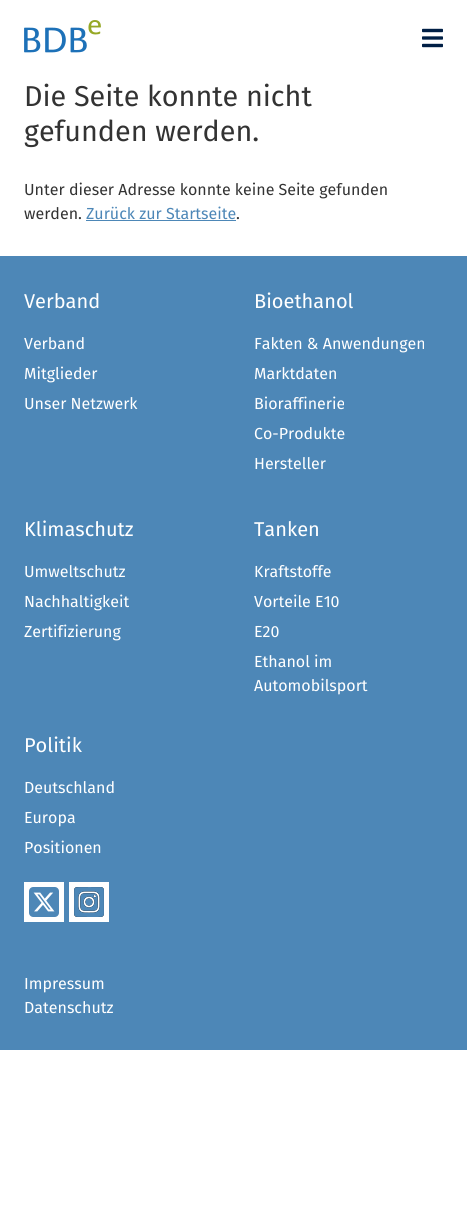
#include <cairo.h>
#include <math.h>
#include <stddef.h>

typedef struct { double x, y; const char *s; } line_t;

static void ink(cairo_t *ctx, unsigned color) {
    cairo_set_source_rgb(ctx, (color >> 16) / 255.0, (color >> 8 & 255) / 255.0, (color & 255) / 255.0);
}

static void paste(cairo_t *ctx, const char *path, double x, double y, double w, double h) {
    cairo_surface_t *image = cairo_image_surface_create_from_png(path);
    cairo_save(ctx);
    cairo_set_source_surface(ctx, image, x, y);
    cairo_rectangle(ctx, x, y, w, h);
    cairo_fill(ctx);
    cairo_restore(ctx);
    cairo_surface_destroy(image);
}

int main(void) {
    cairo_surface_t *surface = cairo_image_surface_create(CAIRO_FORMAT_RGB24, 467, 1210);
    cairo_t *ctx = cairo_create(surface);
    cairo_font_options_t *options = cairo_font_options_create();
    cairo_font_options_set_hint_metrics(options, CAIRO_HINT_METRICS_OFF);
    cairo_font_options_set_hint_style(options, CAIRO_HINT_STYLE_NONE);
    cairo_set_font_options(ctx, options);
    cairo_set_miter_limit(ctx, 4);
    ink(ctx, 0xFFFFFF);
    cairo_paint(ctx);
    paste(ctx, "media/1.png", 24, 20, 77, 33);
    paste(ctx, "media/2.png", 422, 28, 21, 20);
    cairo_select_font_face(ctx, "Fira Sans", CAIRO_FONT_SLANT_NORMAL, CAIRO_FONT_WEIGHT_NORMAL);
    cairo_set_font_size(ctx, 28.75);
    ink(ctx, 0x333333);
    cairo_move_to(ctx, 24, 106);
    cairo_show_text(ctx, "Die Seite konnte nicht");
    cairo_move_to(ctx, 24, 141);
    cairo_show_text(ctx, "gefunden werden.");
    cairo_set_font_size(ctx, 16);
    cairo_move_to(ctx, 24, 195);
    cairo_show_text(ctx, "Unter dieser Adresse konnte keine Seite gefunden");
    cairo_move_to(ctx, 24, 219);
    cairo_show_text(ctx, "werden.");
    ink(ctx, 0x4D87B7);
    cairo_move_to(ctx, 86, 219);
    cairo_show_text(ctx, "Zurück zur Startseite");
    cairo_rectangle(ctx, 86, 220, 150, 1);
    cairo_fill(ctx);
    ink(ctx, 0x333333);
    cairo_move_to(ctx, 236, 219);
    cairo_show_text(ctx, ".");
    ink(ctx, 0x4D87B7);
    cairo_rectangle(ctx, 0, 256, 467, 794);
    cairo_fill(ctx);
    cairo_set_font_size(ctx, 20);
    ink(ctx, 0xFFFFFF);
    cairo_move_to(ctx, 24, 308);
    cairo_show_text(ctx, "Verband");
    cairo_set_font_size(ctx, 16);
    {
        static const line_t items[] = {
            {24, 349, "Verband"},
            {24, 379, "Mitglieder"},
            {24, 409, "Unser Netzwerk"},
        };
        for (size_t i = 0; i < sizeof items / sizeof *items; i++) {
            cairo_move_to(ctx, items[i].x, items[i].y);
            cairo_show_text(ctx, items[i].s);
        }
    }
    cairo_set_font_size(ctx, 20);
    cairo_move_to(ctx, 254, 308);
    cairo_show_text(ctx, "Bioethanol");
    cairo_set_font_size(ctx, 16);
    {
        static const line_t items[] = {
            {254, 349, "Fakten & Anwendungen"},
            {254, 379, "Marktdaten"},
            {254, 409, "Bioraffinerie"},
            {254, 439, "Co-Produkte"},
            {254, 469, "Hersteller"},
        };
        for (size_t i = 0; i < sizeof items / sizeof *items; i++) {
            cairo_move_to(ctx, items[i].x, items[i].y);
            cairo_show_text(ctx, items[i].s);
        }
    }
    cairo_set_font_size(ctx, 20);
    cairo_move_to(ctx, 24, 536);
    cairo_show_text(ctx, "Klimaschutz");
    cairo_set_font_size(ctx, 16);
    {
        static const line_t items[] = {
            {24, 577, "Umweltschutz"},
            {24, 607, "Nachhaltigkeit"},
            {24, 637, "Zertifizierung"},
        };
        for (size_t i = 0; i < sizeof items / sizeof *items; i++) {
            cairo_move_to(ctx, items[i].x, items[i].y);
            cairo_show_text(ctx, items[i].s);
        }
    }
    cairo_set_font_size(ctx, 20);
    cairo_move_to(ctx, 254, 536);
    cairo_show_text(ctx, "Tanken");
    cairo_set_font_size(ctx, 16);
    {
        static const line_t items[] = {
            {254, 577, "Kraftstoffe"},
            {254, 607, "Vorteile E10"},
            {254, 637, "E20"},
            {254, 667, "Ethanol im"},
            {254, 691, "Automobilsport"},
        };
        for (size_t i = 0; i < sizeof items / sizeof *items; i++) {
            cairo_move_to(ctx, items[i].x, items[i].y);
            cairo_show_text(ctx, items[i].s);
        }
    }
    cairo_set_font_size(ctx, 20);
    cairo_move_to(ctx, 24, 752);
    cairo_show_text(ctx, "Politik");
    cairo_set_font_size(ctx, 16);
    {
        static const line_t items[] = {
            {24, 793, "Deutschland"},
            {24, 823, "Europa"},
            {24, 853, "Positionen"},
        };
        for (size_t i = 0; i < sizeof items / sizeof *items; i++) {
            cairo_move_to(ctx, items[i].x, items[i].y);
            cairo_show_text(ctx, items[i].s);
        }
    }
    cairo_rectangle(ctx, 24, 882, 40, 40);
    cairo_fill(ctx);
    paste(ctx, "media/3.png", 29, 887, 30, 30);
    cairo_rectangle(ctx, 69, 882, 40, 40);
    cairo_fill(ctx);
    paste(ctx, "media/4.png", 74, 887, 30, 30);
    cairo_move_to(ctx, 24, 989);
    cairo_show_text(ctx, "Impressum");
    cairo_move_to(ctx, 24, 1013);
    cairo_show_text(ctx, "Datenschutz");
    cairo_surface_write_to_png(surface, "image.png");
    cairo_font_options_destroy(options);
    cairo_destroy(ctx);
    cairo_surface_destroy(surface);
    return 0;
}
